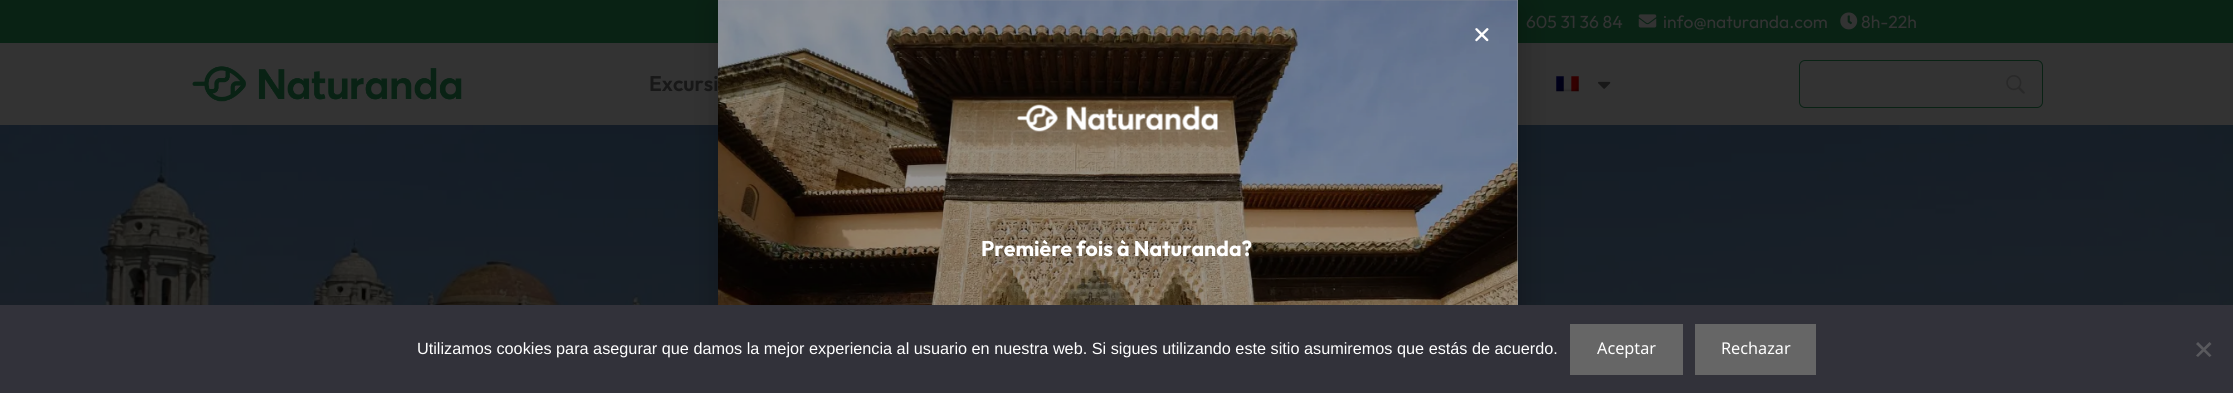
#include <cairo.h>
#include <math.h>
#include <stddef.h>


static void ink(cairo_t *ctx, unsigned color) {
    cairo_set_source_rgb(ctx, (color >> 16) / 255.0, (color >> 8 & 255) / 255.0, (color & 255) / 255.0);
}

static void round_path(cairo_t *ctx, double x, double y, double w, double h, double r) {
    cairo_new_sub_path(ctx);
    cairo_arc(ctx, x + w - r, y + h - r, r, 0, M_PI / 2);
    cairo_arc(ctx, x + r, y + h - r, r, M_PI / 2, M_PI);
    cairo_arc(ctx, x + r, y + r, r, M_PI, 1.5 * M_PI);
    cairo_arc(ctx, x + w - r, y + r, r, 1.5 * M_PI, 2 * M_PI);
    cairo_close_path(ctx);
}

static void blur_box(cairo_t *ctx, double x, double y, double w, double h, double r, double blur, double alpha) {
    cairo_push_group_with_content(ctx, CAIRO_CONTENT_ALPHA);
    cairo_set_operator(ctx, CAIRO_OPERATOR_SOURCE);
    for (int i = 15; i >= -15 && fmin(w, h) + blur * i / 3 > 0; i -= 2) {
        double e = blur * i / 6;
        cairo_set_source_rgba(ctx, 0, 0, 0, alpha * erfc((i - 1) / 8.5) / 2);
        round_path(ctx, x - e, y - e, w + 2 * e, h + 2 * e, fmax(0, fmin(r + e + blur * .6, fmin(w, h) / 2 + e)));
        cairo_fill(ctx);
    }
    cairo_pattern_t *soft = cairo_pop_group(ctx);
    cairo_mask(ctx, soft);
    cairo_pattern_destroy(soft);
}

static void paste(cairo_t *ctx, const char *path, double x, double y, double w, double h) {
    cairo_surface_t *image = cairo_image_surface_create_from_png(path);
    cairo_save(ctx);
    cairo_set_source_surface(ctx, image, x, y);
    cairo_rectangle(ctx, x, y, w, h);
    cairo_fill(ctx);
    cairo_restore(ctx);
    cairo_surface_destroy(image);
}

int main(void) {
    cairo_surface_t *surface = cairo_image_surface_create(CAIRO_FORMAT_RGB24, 2233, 393);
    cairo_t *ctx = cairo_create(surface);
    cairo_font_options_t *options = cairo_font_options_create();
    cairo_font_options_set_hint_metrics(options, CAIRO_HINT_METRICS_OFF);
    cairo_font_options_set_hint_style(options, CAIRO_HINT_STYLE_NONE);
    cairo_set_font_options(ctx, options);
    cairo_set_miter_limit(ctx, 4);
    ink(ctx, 0x092214);
    cairo_paint(ctx);
    cairo_select_font_face(ctx, "Outfit", CAIRO_FONT_SLANT_NORMAL, CAIRO_FONT_WEIGHT_NORMAL);
    cairo_set_font_size(ctx, 17.5);
    ink(ctx, 0x333333);
    cairo_move_to(ctx, 1526, 28);
    cairo_show_text(ctx, "605 31 36 84");
    paste(ctx, "media/1.png", 1638, 14, 19, 14);
    cairo_move_to(ctx, 1663, 28);
    cairo_show_text(ctx, "info@naturanda.com");
    paste(ctx, "media/2.png", 1840, 12, 18, 18);
    cairo_move_to(ctx, 1861, 28);
    cairo_show_text(ctx, "8h-22h");
    cairo_rectangle(ctx, 0, 43, 2233, 82);
    cairo_fill(ctx);
    paste(ctx, "media/3.png", 192, 66, 270, 36);
    cairo_select_font_face(ctx, "Outfit SemiBold", CAIRO_FONT_SLANT_NORMAL, CAIRO_FONT_WEIGHT_NORMAL);
    cairo_set_font_size(ctx, 21.25);
    ink(ctx, 0x181818);
    cairo_move_to(ctx, 649, 91);
    cairo_show_text(ctx, "Excursi");
    paste(ctx, "media/4.png", 1556, 76, 23, 16);
    paste(ctx, "media/5.png", 1598, 81, 13, 8);
    paste(ctx, "media/6.png", 2006, 75, 19, 19);
    round_path(ctx, 1799.5, 60.5, 243, 47, 5.5);
    ink(ctx, 0x092214);
    cairo_set_line_width(ctx, 1);
    cairo_stroke(ctx);
    paste(ctx, "media/7.png", 0, 125, 2233, 180);
    ink(ctx, 0x000000);
    blur_box(ctx, 716, 6, 808, 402, 0, 14.5, 0.2);
    ink(ctx, 0xFFFFFF);
    cairo_rectangle(ctx, 718, 0, 800, 305);
    cairo_fill(ctx);
    paste(ctx, "media/9.png", 718, 0, 800, 305);
    cairo_set_source_rgba(ctx, 0, 0, 0, 0.4);
    cairo_rectangle(ctx, 718, 0, 800, 305);
    cairo_fill(ctx);
    paste(ctx, "media/8.png", 1475, 28, 14, 14);
    paste(ctx, "media/10.png", 1017, 104, 201, 28);
    cairo_select_font_face(ctx, "Outfit", CAIRO_FONT_SLANT_NORMAL, CAIRO_FONT_WEIGHT_BOLD);
    ink(ctx, 0xFFFFFF);
    cairo_move_to(ctx, 981, 256);
    cairo_show_text(ctx, "Première fois à Naturanda?");
    ink(ctx, 0x32323A);
    cairo_rectangle(ctx, 0, 305, 2233, 88);
    cairo_fill(ctx);
    cairo_select_font_face(ctx, "Liberation Sans", CAIRO_FONT_SLANT_NORMAL, CAIRO_FONT_WEIGHT_NORMAL);
    cairo_set_font_size(ctx, 16.25);
    ink(ctx, 0xFFFFFF);
    cairo_move_to(ctx, 417, 354);
    cairo_show_text(ctx, "Utilizamos cookies para asegurar que damos la mejor experiencia al usuario en nuestra web. Si sigues utilizando este sitio asumiremos que estás de acuerdo.");
    ink(ctx, 0x666666);
    cairo_rectangle(ctx, 1570, 324, 113, 51);
    cairo_fill(ctx);
    cairo_select_font_face(ctx, "Noto Sans", CAIRO_FONT_SLANT_NORMAL, CAIRO_FONT_WEIGHT_NORMAL);
    ink(ctx, 0xFFFFFF);
    cairo_move_to(ctx, 1597, 354);
    cairo_show_text(ctx, "Aceptar");
    ink(ctx, 0x666666);
    cairo_rectangle(ctx, 1695, 324, 121, 51);
    cairo_fill(ctx);
    ink(ctx, 0xFFFFFF);
    cairo_move_to(ctx, 1721, 354);
    cairo_show_text(ctx, "Rechazar");
    ink(ctx, 0x59595D);
    cairo_new_path(ctx);
    cairo_move_to(ctx, 2209.5, 342);
    cairo_line_to(ctx, 2211.5, 344);
    cairo_line_to(ctx, 2198, 357);
    cairo_line_to(ctx, 2196, 355.5);
    cairo_close_path(ctx);
    cairo_fill(ctx);
    cairo_new_path(ctx);
    cairo_move_to(ctx, 2196, 344);
    cairo_line_to(ctx, 2198, 342);
    cairo_line_to(ctx, 2211.5, 355.5);
    cairo_line_to(ctx, 2209.5, 357);
    cairo_close_path(ctx);
    cairo_fill(ctx);
    cairo_surface_write_to_png(surface, "image.png");
    cairo_font_options_destroy(options);
    cairo_destroy(ctx);
    cairo_surface_destroy(surface);
    return 0;
}
